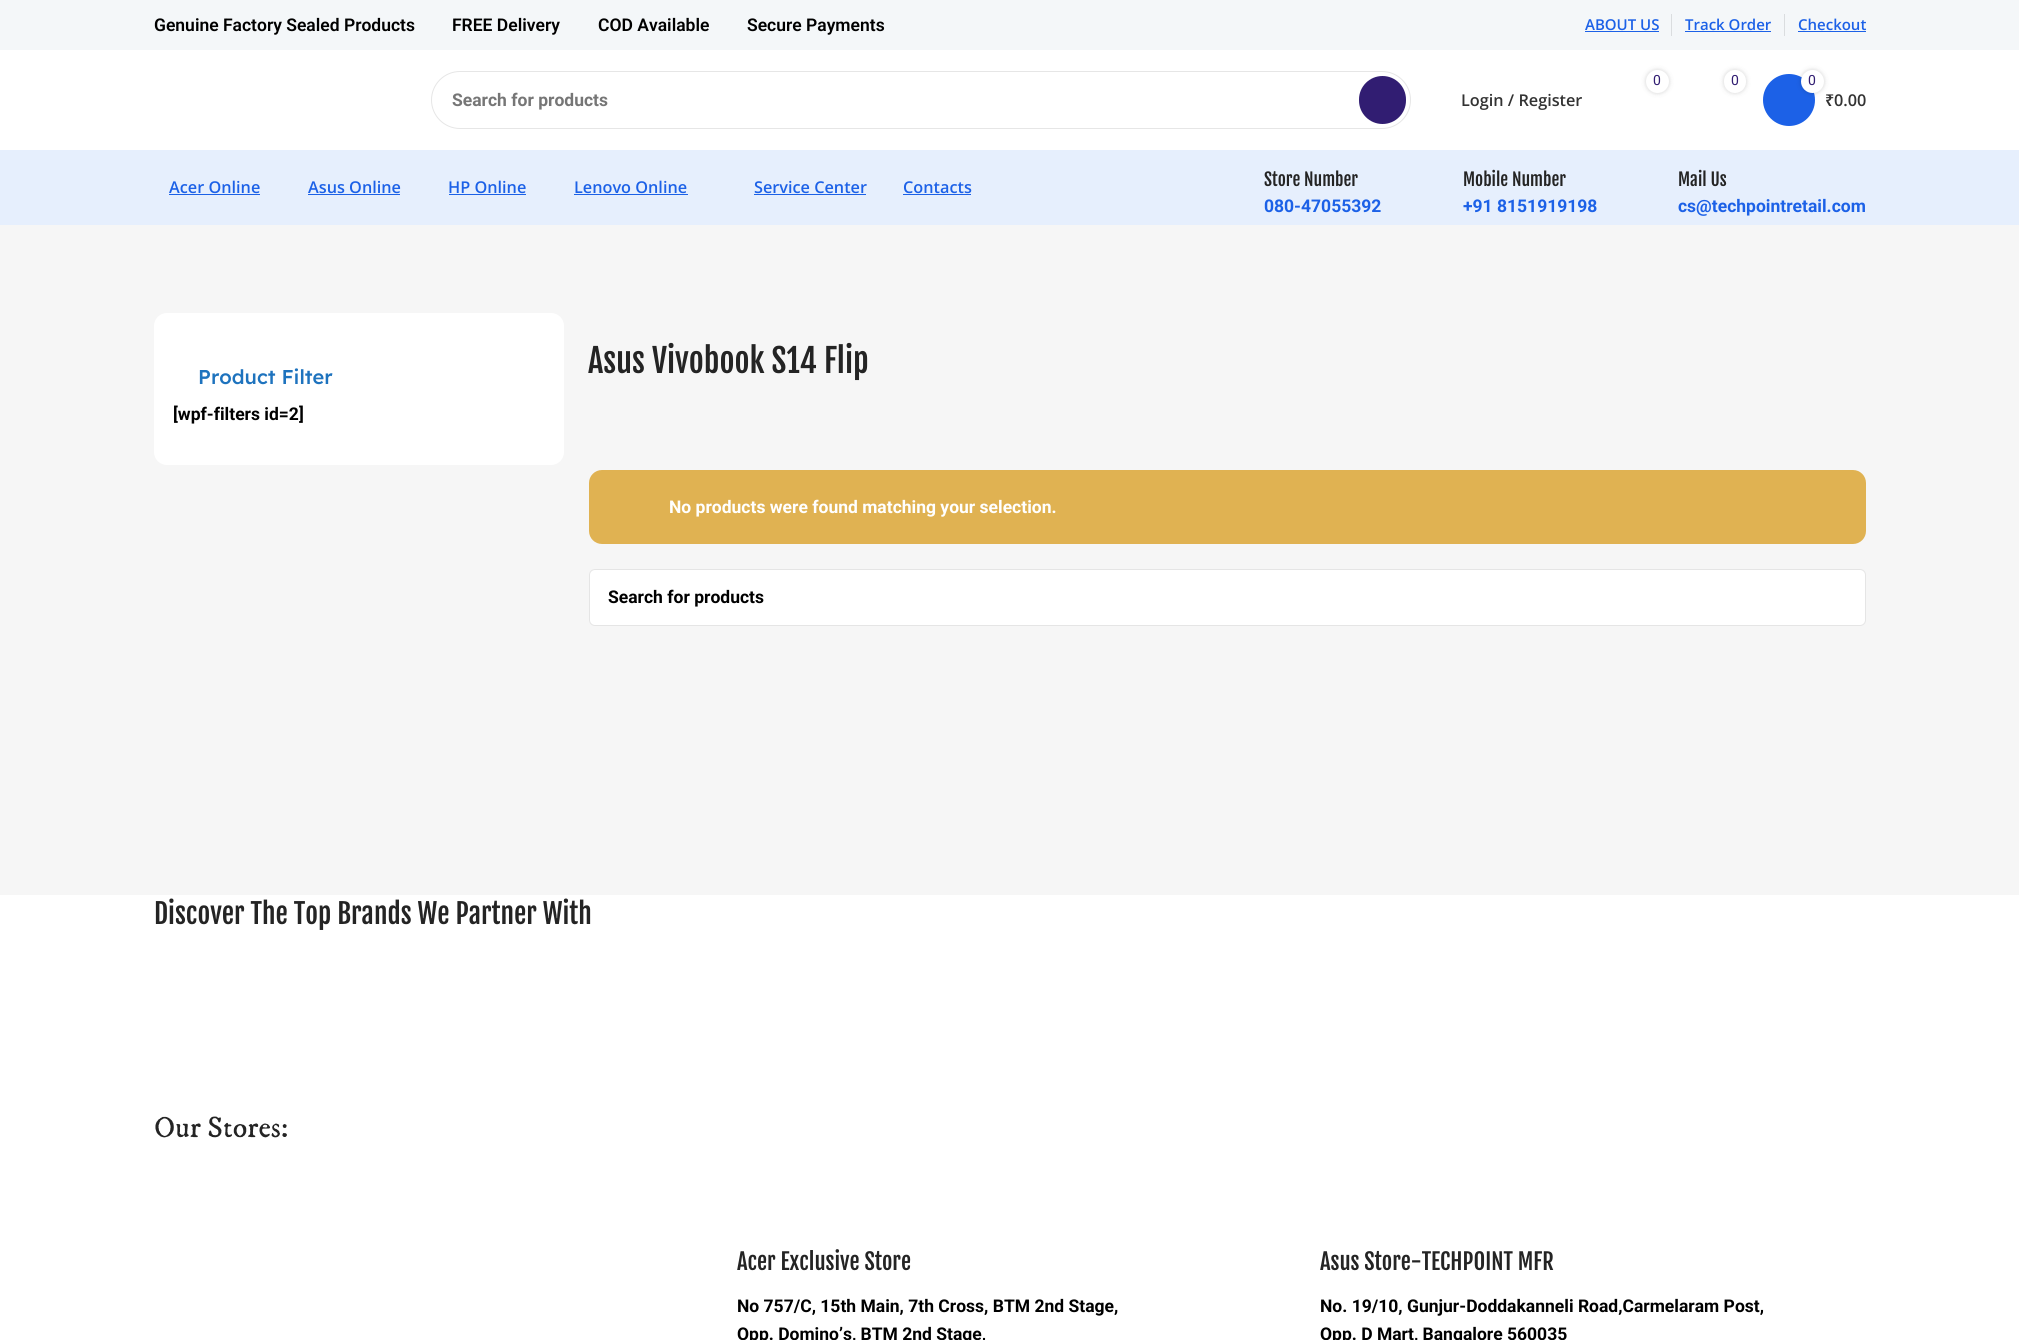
#include <cairo.h>
#include <math.h>
#include <stddef.h>

typedef struct { double x, y; const char *s; } line_t;

static void ink(cairo_t *ctx, unsigned color) {
    cairo_set_source_rgb(ctx, (color >> 16) / 255.0, (color >> 8 & 255) / 255.0, (color & 255) / 255.0);
}

static void round_path(cairo_t *ctx, double x, double y, double w, double h, double r) {
    cairo_new_sub_path(ctx);
    cairo_arc(ctx, x + w - r, y + h - r, r, 0, M_PI / 2);
    cairo_arc(ctx, x + r, y + h - r, r, M_PI / 2, M_PI);
    cairo_arc(ctx, x + r, y + r, r, M_PI, 1.5 * M_PI);
    cairo_arc(ctx, x + w - r, y + r, r, 1.5 * M_PI, 2 * M_PI);
    cairo_close_path(ctx);
}

static void blur_box(cairo_t *ctx, double x, double y, double w, double h, double r, double blur, double alpha) {
    cairo_push_group_with_content(ctx, CAIRO_CONTENT_ALPHA);
    cairo_set_operator(ctx, CAIRO_OPERATOR_SOURCE);
    for (int i = 15; i >= -15 && fmin(w, h) + blur * i / 3 > 0; i -= 2) {
        double e = blur * i / 6;
        cairo_set_source_rgba(ctx, 0, 0, 0, alpha * erfc((i - 1) / 8.5) / 2);
        round_path(ctx, x - e, y - e, w + 2 * e, h + 2 * e, fmax(0, fmin(r + e + blur * .6, fmin(w, h) / 2 + e)));
        cairo_fill(ctx);
    }
    cairo_pattern_t *soft = cairo_pop_group(ctx);
    cairo_mask(ctx, soft);
    cairo_pattern_destroy(soft);
}

int main(void) {
    cairo_surface_t *surface = cairo_image_surface_create(CAIRO_FORMAT_RGB24, 2019, 1340);
    cairo_t *ctx = cairo_create(surface);
    cairo_font_options_t *options = cairo_font_options_create();
    cairo_font_options_set_hint_metrics(options, CAIRO_HINT_METRICS_OFF);
    cairo_font_options_set_hint_style(options, CAIRO_HINT_STYLE_NONE);
    cairo_set_font_options(ctx, options);
    cairo_set_miter_limit(ctx, 4);
    ink(ctx, 0xFFFFFF);
    cairo_paint(ctx);
    ink(ctx, 0xF4F7F9);
    cairo_rectangle(ctx, 0, 0, 2019, 50);
    cairo_fill(ctx);
    cairo_select_font_face(ctx, "Roboto SemiBold", CAIRO_FONT_SLANT_NORMAL, CAIRO_FONT_WEIGHT_NORMAL);
    cairo_set_font_size(ctx, 17.5);
    ink(ctx, 0x000000);
    {
        static const line_t items[] = {
            {154, 31, "Genuine Factory Sealed Products"},
            {452, 31, "FREE Delivery"},
            {598, 31, "COD Available"},
            {747, 31, "Secure Payments"},
        };
        for (size_t i = 0; i < sizeof items / sizeof *items; i++) {
            cairo_move_to(ctx, items[i].x, items[i].y);
            cairo_show_text(ctx, items[i].s);
        }
    }
    cairo_select_font_face(ctx, "Open Sans SemiBold", CAIRO_FONT_SLANT_NORMAL, CAIRO_FONT_WEIGHT_NORMAL);
    cairo_set_font_size(ctx, 15);
    ink(ctx, 0x1C61E7);
    cairo_move_to(ctx, 1585, 30);
    cairo_show_text(ctx, "ABOUT US");
    cairo_rectangle(ctx, 1585, 31, 74, 1);
    cairo_fill(ctx);
    ink(ctx, 0xDADDDF);
    cairo_rectangle(ctx, 1671, 14, 1, 22);
    cairo_fill(ctx);
    ink(ctx, 0x1C61E7);
    cairo_move_to(ctx, 1685, 30);
    cairo_show_text(ctx, "Track Order");
    cairo_rectangle(ctx, 1685, 31, 86, 1);
    cairo_fill(ctx);
    ink(ctx, 0xDADDDF);
    cairo_rectangle(ctx, 1784, 14, 1, 22);
    cairo_fill(ctx);
    ink(ctx, 0x1C61E7);
    cairo_move_to(ctx, 1798, 30);
    cairo_show_text(ctx, "Checkout");
    cairo_rectangle(ctx, 1798, 31, 68, 1);
    cairo_fill(ctx);
    round_path(ctx, 431.5, 71.5, 979, 57, 28.5);
    ink(ctx, 0xE6E6E6);
    cairo_set_line_width(ctx, 1);
    cairo_stroke(ctx);
    cairo_select_font_face(ctx, "Roboto", CAIRO_FONT_SLANT_NORMAL, CAIRO_FONT_WEIGHT_BOLD);
    cairo_set_font_size(ctx, 17.5);
    ink(ctx, 0x767676);
    cairo_move_to(ctx, 452, 106);
    cairo_show_text(ctx, "Search for products");
    ink(ctx, 0x311D72);
    round_path(ctx, 1359, 76, 47, 48, 23.5);
    cairo_fill(ctx);
    cairo_select_font_face(ctx, "Open Sans SemiBold", CAIRO_FONT_SLANT_NORMAL, CAIRO_FONT_WEIGHT_NORMAL);
    cairo_set_font_size(ctx, 16.25);
    ink(ctx, 0x333333);
    cairo_move_to(ctx, 1461, 106);
    cairo_show_text(ctx, "Login / Register");
    ink(ctx, 0x000000);
    blur_box(ctx, 1646, 70, 23, 23, 11.5, 2.5, 0.17);
    ink(ctx, 0xFFFFFF);
    cairo_arc(ctx, 1657.5, 81.5, 11.5, 0, 2 * M_PI);
    cairo_fill(ctx);
    cairo_select_font_face(ctx, "Roboto", CAIRO_FONT_SLANT_NORMAL, CAIRO_FONT_WEIGHT_NORMAL);
    cairo_set_font_size(ctx, 14);
    ink(ctx, 0x311D72);
    cairo_move_to(ctx, 1653, 85);
    cairo_show_text(ctx, "0");
    ink(ctx, 0x000000);
    blur_box(ctx, 1724, 70, 22, 23, 11, 2.5, 0.17);
    ink(ctx, 0xFFFFFF);
    round_path(ctx, 1724, 70, 22, 23, 11);
    cairo_fill(ctx);
    ink(ctx, 0x311D72);
    cairo_move_to(ctx, 1731, 85);
    cairo_show_text(ctx, "0");
    ink(ctx, 0x1C61E7);
    cairo_new_path(ctx);
    cairo_arc(ctx, 1789, 100, 26, 0, 2 * M_PI);
    cairo_fill(ctx);
    ink(ctx, 0x000000);
    blur_box(ctx, 1801, 70, 23, 23, 11.5, 2.5, 0.17);
    ink(ctx, 0xFFFFFF);
    cairo_arc(ctx, 1812.5, 81.5, 11.5, 0, 2 * M_PI);
    cairo_fill(ctx);
    ink(ctx, 0x311D72);
    cairo_move_to(ctx, 1808, 85);
    cairo_show_text(ctx, "0");
    cairo_select_font_face(ctx, "Noto Sans SemiBold", CAIRO_FONT_SLANT_NORMAL, CAIRO_FONT_WEIGHT_NORMAL);
    cairo_set_font_size(ctx, 16.25);
    ink(ctx, 0x333333);
    cairo_move_to(ctx, 1825, 106);
    cairo_show_text(ctx, "₹");
    cairo_select_font_face(ctx, "Open Sans SemiBold", CAIRO_FONT_SLANT_NORMAL, CAIRO_FONT_WEIGHT_NORMAL);
    cairo_move_to(ctx, 1834, 106);
    cairo_show_text(ctx, "0.00");
    ink(ctx, 0xE6EFFD);
    cairo_rectangle(ctx, 0, 150, 2019, 75);
    cairo_fill(ctx);
    ink(ctx, 0x1C61E7);
    cairo_move_to(ctx, 169, 193);
    cairo_show_text(ctx, "Acer Online");
    cairo_rectangle(ctx, 169, 194, 91, 1);
    cairo_fill(ctx);
    cairo_move_to(ctx, 308, 193);
    cairo_show_text(ctx, "Asus Online");
    cairo_rectangle(ctx, 308, 194, 92, 1);
    cairo_fill(ctx);
    cairo_move_to(ctx, 448, 193);
    cairo_show_text(ctx, "HP Online");
    cairo_rectangle(ctx, 449, 194, 77, 1);
    cairo_fill(ctx);
    cairo_move_to(ctx, 574, 193);
    cairo_show_text(ctx, "Lenovo Online");
    cairo_rectangle(ctx, 574, 194, 114, 1);
    cairo_fill(ctx);
    cairo_move_to(ctx, 754, 193);
    cairo_show_text(ctx, "Service Center");
    cairo_rectangle(ctx, 754, 194, 112, 1);
    cairo_fill(ctx);
    cairo_move_to(ctx, 903, 193);
    cairo_show_text(ctx, "Contacts");
    cairo_rectangle(ctx, 903, 194, 68, 1);
    cairo_fill(ctx);
    cairo_select_font_face(ctx, "Fjalla One", CAIRO_FONT_SLANT_NORMAL, CAIRO_FONT_WEIGHT_NORMAL);
    cairo_set_font_size(ctx, 17.5);
    ink(ctx, 0x242424);
    cairo_move_to(ctx, 1264, 186);
    cairo_show_text(ctx, "Store Number");
    cairo_select_font_face(ctx, "Roboto", CAIRO_FONT_SLANT_NORMAL, CAIRO_FONT_WEIGHT_BOLD);
    ink(ctx, 0x1C61E7);
    cairo_move_to(ctx, 1264, 212);
    cairo_show_text(ctx, "080-47055392");
    cairo_select_font_face(ctx, "Fjalla One", CAIRO_FONT_SLANT_NORMAL, CAIRO_FONT_WEIGHT_NORMAL);
    ink(ctx, 0x242424);
    cairo_move_to(ctx, 1463, 186);
    cairo_show_text(ctx, "Mobile Number");
    cairo_select_font_face(ctx, "Roboto", CAIRO_FONT_SLANT_NORMAL, CAIRO_FONT_WEIGHT_BOLD);
    ink(ctx, 0x1C61E7);
    cairo_move_to(ctx, 1463, 212);
    cairo_show_text(ctx, "+91 8151919198");
    cairo_select_font_face(ctx, "Fjalla One", CAIRO_FONT_SLANT_NORMAL, CAIRO_FONT_WEIGHT_NORMAL);
    ink(ctx, 0x242424);
    cairo_move_to(ctx, 1678, 186);
    cairo_show_text(ctx, "Mail Us");
    cairo_select_font_face(ctx, "Roboto", CAIRO_FONT_SLANT_NORMAL, CAIRO_FONT_WEIGHT_BOLD);
    ink(ctx, 0x1C61E7);
    cairo_move_to(ctx, 1678, 212);
    cairo_show_text(ctx, "cs@techpointretail.com");
    ink(ctx, 0xF6F6F6);
    cairo_rectangle(ctx, 0, 225, 2019, 670);
    cairo_fill(ctx);
    ink(ctx, 0xFFFFFF);
    round_path(ctx, 154, 313, 410, 152, 13);
    cairo_fill(ctx);
    cairo_select_font_face(ctx, "Lexend Deca Medium", CAIRO_FONT_SLANT_NORMAL, CAIRO_FONT_WEIGHT_NORMAL);
    cairo_set_font_size(ctx, 20);
    ink(ctx, 0x1E73BE);
    cairo_move_to(ctx, 198, 384);
    cairo_show_text(ctx, "Product Filter");
    cairo_select_font_face(ctx, "Roboto", CAIRO_FONT_SLANT_NORMAL, CAIRO_FONT_WEIGHT_BOLD);
    cairo_set_font_size(ctx, 17.5);
    ink(ctx, 0x000000);
    cairo_move_to(ctx, 173, 420);
    cairo_show_text(ctx, "[wpf-filters id=2]");
    cairo_select_font_face(ctx, "Fjalla One", CAIRO_FONT_SLANT_NORMAL, CAIRO_FONT_WEIGHT_NORMAL);
    cairo_set_font_size(ctx, 32.5);
    ink(ctx, 0x242424);
    cairo_move_to(ctx, 588, 373);
    cairo_show_text(ctx, "Asus Vivobook S14 Flip");
    ink(ctx, 0xE0B252);
    round_path(ctx, 589, 470, 1277, 74, 13);
    cairo_fill(ctx);
    cairo_select_font_face(ctx, "Roboto", CAIRO_FONT_SLANT_NORMAL, CAIRO_FONT_WEIGHT_BOLD);
    cairo_set_font_size(ctx, 17.5);
    ink(ctx, 0xFFFFFF);
    cairo_move_to(ctx, 669, 513);
    cairo_show_text(ctx, "No products were found matching your selection.");
    round_path(ctx, 589.5, 569.5, 1276, 56, 5.5);
    cairo_fill_preserve(ctx);
    ink(ctx, 0xE5E5E5);
    cairo_stroke(ctx);
    ink(ctx, 0x000000);
    cairo_move_to(ctx, 608, 603);
    cairo_show_text(ctx, "Search for products");
    cairo_select_font_face(ctx, "Fjalla One", CAIRO_FONT_SLANT_NORMAL, CAIRO_FONT_WEIGHT_NORMAL);
    cairo_set_font_size(ctx, 27.5);
    ink(ctx, 0x242424);
    cairo_move_to(ctx, 154, 924);
    cairo_show_text(ctx, "Discover The Top Brands We Partner With");
    cairo_select_font_face(ctx, "IM FELL DW Pica", CAIRO_FONT_SLANT_NORMAL, CAIRO_FONT_WEIGHT_NORMAL);
    cairo_set_font_size(ctx, 30);
    cairo_move_to(ctx, 154, 1137);
    cairo_show_text(ctx, "Our Stores:");
    cairo_select_font_face(ctx, "Fjalla One", CAIRO_FONT_SLANT_NORMAL, CAIRO_FONT_WEIGHT_NORMAL);
    cairo_set_font_size(ctx, 22.5);
    cairo_move_to(ctx, 737, 1270);
    cairo_show_text(ctx, "Acer Exclusive Store");
    cairo_select_font_face(ctx, "Roboto", CAIRO_FONT_SLANT_NORMAL, CAIRO_FONT_WEIGHT_BOLD);
    cairo_set_font_size(ctx, 17.5);
    ink(ctx, 0x000000);
    cairo_move_to(ctx, 737, 1312);
    cairo_show_text(ctx, "No 757/C, 15th Main, 7th Cross, BTM 2nd Stage,");
    cairo_move_to(ctx, 737, 1340);
    cairo_show_text(ctx, "Opp. Domino’s, BTM 2nd Stage,");
    cairo_select_font_face(ctx, "Fjalla One", CAIRO_FONT_SLANT_NORMAL, CAIRO_FONT_WEIGHT_NORMAL);
    cairo_set_font_size(ctx, 22.5);
    ink(ctx, 0x242424);
    cairo_move_to(ctx, 1320, 1270);
    cairo_show_text(ctx, "Asus Store-TECHPOINT MFR");
    cairo_select_font_face(ctx, "Roboto", CAIRO_FONT_SLANT_NORMAL, CAIRO_FONT_WEIGHT_BOLD);
    cairo_set_font_size(ctx, 17.5);
    ink(ctx, 0x000000);
    cairo_move_to(ctx, 1320, 1312);
    cairo_show_text(ctx, "No. 19/10, Gunjur-Doddakanneli Road,Carmelaram Post,");
    cairo_move_to(ctx, 1320, 1340);
    cairo_show_text(ctx, "Opp. D Mart, Bangalore 560035");
    cairo_surface_write_to_png(surface, "image.png");
    cairo_font_options_destroy(options);
    cairo_destroy(ctx);
    cairo_surface_destroy(surface);
    return 0;
}
